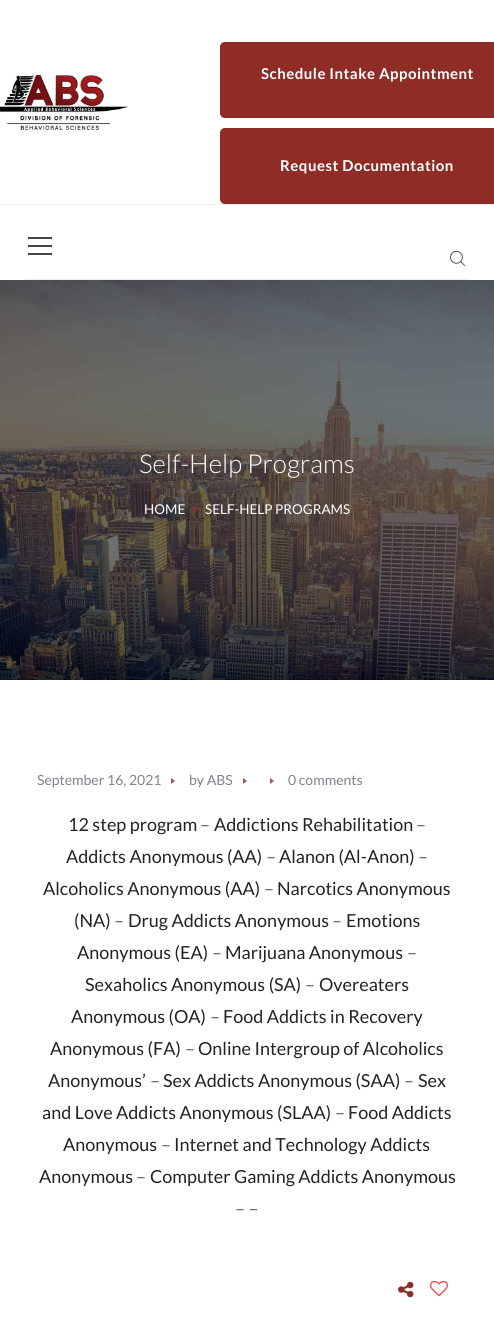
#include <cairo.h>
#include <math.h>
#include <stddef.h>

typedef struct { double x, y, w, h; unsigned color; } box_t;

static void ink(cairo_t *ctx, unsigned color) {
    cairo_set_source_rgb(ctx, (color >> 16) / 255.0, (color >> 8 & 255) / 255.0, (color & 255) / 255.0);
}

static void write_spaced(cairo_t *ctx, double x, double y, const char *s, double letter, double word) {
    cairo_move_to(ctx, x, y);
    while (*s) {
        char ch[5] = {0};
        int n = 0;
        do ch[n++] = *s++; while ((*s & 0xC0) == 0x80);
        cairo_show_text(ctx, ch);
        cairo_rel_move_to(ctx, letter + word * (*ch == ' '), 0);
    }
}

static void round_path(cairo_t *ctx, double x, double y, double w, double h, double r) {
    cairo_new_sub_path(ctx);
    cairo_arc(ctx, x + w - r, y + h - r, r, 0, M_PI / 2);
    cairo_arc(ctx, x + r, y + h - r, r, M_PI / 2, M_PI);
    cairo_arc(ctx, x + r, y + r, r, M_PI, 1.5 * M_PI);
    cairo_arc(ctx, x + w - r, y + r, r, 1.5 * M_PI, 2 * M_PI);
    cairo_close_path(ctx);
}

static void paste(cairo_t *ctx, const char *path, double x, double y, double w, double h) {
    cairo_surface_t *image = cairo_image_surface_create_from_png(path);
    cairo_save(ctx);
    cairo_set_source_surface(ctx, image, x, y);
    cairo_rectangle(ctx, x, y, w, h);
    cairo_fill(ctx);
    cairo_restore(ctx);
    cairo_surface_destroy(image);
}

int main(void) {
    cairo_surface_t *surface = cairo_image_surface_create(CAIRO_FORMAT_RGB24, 494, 1329);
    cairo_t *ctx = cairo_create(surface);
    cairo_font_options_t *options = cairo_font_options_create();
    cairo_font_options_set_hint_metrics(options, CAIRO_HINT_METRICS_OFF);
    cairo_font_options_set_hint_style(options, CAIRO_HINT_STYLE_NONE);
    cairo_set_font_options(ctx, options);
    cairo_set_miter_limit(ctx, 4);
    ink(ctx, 0xFFFFFF);
    cairo_paint(ctx);
    ink(ctx, 0xECEFF1);
    cairo_rectangle(ctx, 0, 204, 494, 1);
    cairo_fill(ctx);
    paste(ctx, "media/1.png", 0, 75, 128, 55);
    ink(ctx, 0x8E2C25);
    round_path(ctx, 220.5, 42.5, 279, 75, 4.5);
    cairo_fill_preserve(ctx);
    cairo_set_line_width(ctx, 1);
    cairo_stroke(ctx);
    cairo_select_font_face(ctx, "Lato", CAIRO_FONT_SLANT_NORMAL, CAIRO_FONT_WEIGHT_BOLD);
    cairo_set_font_size(ctx, 15);
    ink(ctx, 0xFFFFFF);
    write_spaced(ctx, 261, 79, "Schedule Intake Appointment", 0.5, 0);
    ink(ctx, 0x8E2C25);
    round_path(ctx, 220.5, 128.5, 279, 75, 4.5);
    cairo_fill_preserve(ctx);
    cairo_stroke(ctx);
    ink(ctx, 0xFFFFFF);
    write_spaced(ctx, 280, 171, "Request Documentation", 0.5, 0);
    {
        static const box_t items[] = {
            {25, 279, 444, 1, 0xECEFF1},
            {28, 245, 24, 2, 0x42474C},
            {28, 237, 24, 2, 0x42474C},
            {28, 253, 24, 2, 0x42474C},
        };
        for (size_t i = 0; i < sizeof items / sizeof *items; i++) {
            ink(ctx, items[i].color);
            cairo_rectangle(ctx, items[i].x, items[i].y, items[i].w, items[i].h);
            cairo_fill(ctx);
        }
    }
    paste(ctx, "media/2.png", 450, 250, 15, 16);
    paste(ctx, "media/3.png", 0, 280, 494, 400);
    cairo_select_font_face(ctx, "Lato Light", CAIRO_FONT_SLANT_NORMAL, CAIRO_FONT_WEIGHT_NORMAL);
    cairo_set_font_size(ctx, 26);
    ink(ctx, 0xFFFFFF);
    cairo_move_to(ctx, 139, 473);
    cairo_show_text(ctx, "Self-Help Programs");
    cairo_select_font_face(ctx, "Lato", CAIRO_FONT_SLANT_NORMAL, CAIRO_FONT_WEIGHT_NORMAL);
    cairo_set_font_size(ctx, 13.5);
    cairo_move_to(ctx, 144, 514);
    cairo_show_text(ctx, "HOME");
    paste(ctx, "media/4.png", 194, 505, 5, 8);
    cairo_move_to(ctx, 205, 514);
    cairo_show_text(ctx, "SELF-HELP PROGRAMS");
    cairo_set_font_size(ctx, 14);
    ink(ctx, 0x7D848A);
    cairo_move_to(ctx, 37, 785);
    cairo_show_text(ctx, "September 16, 2021");
    ink(ctx, 0xA55651);
    cairo_new_path(ctx);
    cairo_move_to(ctx, 171, 784);
    cairo_line_to(ctx, 171, 778);
    cairo_line_to(ctx, 175, 781);
    cairo_close_path(ctx);
    cairo_fill(ctx);
    ink(ctx, 0x7D848A);
    cairo_move_to(ctx, 189, 785);
    cairo_show_text(ctx, "by ABS");
    ink(ctx, 0xA55651);
    cairo_new_path(ctx);
    cairo_move_to(ctx, 243, 784);
    cairo_line_to(ctx, 243, 778);
    cairo_line_to(ctx, 247, 781);
    cairo_close_path(ctx);
    cairo_move_to(ctx, 270, 784);
    cairo_line_to(ctx, 270, 778);
    cairo_line_to(ctx, 274, 781);
    cairo_close_path(ctx);
    cairo_fill(ctx);
    ink(ctx, 0x7D848A);
    cairo_move_to(ctx, 288, 785);
    cairo_show_text(ctx, "0 comments");
    cairo_set_font_size(ctx, 18);
    ink(ctx, 0x222328);
    cairo_move_to(ctx, 68, 831);
    cairo_show_text(ctx, "12 step program");
    ink(ctx, 0x5C656D);
    cairo_move_to(ctx, 200, 831);
    cairo_show_text(ctx, "–");
    ink(ctx, 0x222328);
    cairo_move_to(ctx, 214, 831);
    cairo_show_text(ctx, "Addictions Rehabilitation");
    ink(ctx, 0x5C656D);
    cairo_move_to(ctx, 416, 831);
    cairo_show_text(ctx, "–");
    ink(ctx, 0x222328);
    cairo_move_to(ctx, 66, 863);
    cairo_show_text(ctx, "Addicts Anonymous (AA)");
    ink(ctx, 0x5C656D);
    cairo_move_to(ctx, 266, 863);
    cairo_show_text(ctx, "–");
    ink(ctx, 0x222328);
    cairo_move_to(ctx, 279, 863);
    cairo_show_text(ctx, "Alanon (Al-Anon)");
    ink(ctx, 0x5C656D);
    cairo_move_to(ctx, 418, 863);
    cairo_show_text(ctx, "–");
    ink(ctx, 0x222328);
    cairo_move_to(ctx, 43, 895);
    cairo_show_text(ctx, "Alcoholics Anonymous (AA)");
    ink(ctx, 0x5C656D);
    cairo_move_to(ctx, 264, 895);
    cairo_show_text(ctx, "–");
    ink(ctx, 0x222328);
    cairo_move_to(ctx, 277, 895);
    cairo_show_text(ctx, "Narcotics Anonymous");
    cairo_move_to(ctx, 74, 927);
    cairo_show_text(ctx, "(NA)");
    ink(ctx, 0x5C656D);
    cairo_move_to(ctx, 114, 927);
    cairo_show_text(ctx, "–");
    ink(ctx, 0x222328);
    cairo_move_to(ctx, 128, 927);
    cairo_show_text(ctx, "Drug Addicts Anonymous");
    ink(ctx, 0x5C656D);
    cairo_move_to(ctx, 332, 927);
    cairo_show_text(ctx, "–");
    ink(ctx, 0x222328);
    cairo_move_to(ctx, 346, 927);
    cairo_show_text(ctx, "Emotions");
    cairo_move_to(ctx, 77, 959);
    cairo_show_text(ctx, "Anonymous (EA)");
    ink(ctx, 0x5C656D);
    cairo_move_to(ctx, 212, 959);
    cairo_show_text(ctx, "–");
    ink(ctx, 0x222328);
    cairo_move_to(ctx, 225, 959);
    cairo_show_text(ctx, "Marijuana Anonymous");
    ink(ctx, 0x5C656D);
    cairo_move_to(ctx, 407, 959);
    cairo_show_text(ctx, "–");
    ink(ctx, 0x222328);
    cairo_move_to(ctx, 85, 991);
    cairo_show_text(ctx, "Sexaholics Anonymous (SA)");
    ink(ctx, 0x5C656D);
    cairo_move_to(ctx, 305, 991);
    cairo_show_text(ctx, "–");
    ink(ctx, 0x222328);
    cairo_move_to(ctx, 319, 991);
    cairo_show_text(ctx, "Overeaters");
    cairo_move_to(ctx, 71, 1023);
    cairo_show_text(ctx, "Anonymous (OA)");
    ink(ctx, 0x5C656D);
    cairo_move_to(ctx, 210, 1023);
    cairo_show_text(ctx, "–");
    ink(ctx, 0x222328);
    cairo_move_to(ctx, 223, 1023);
    cairo_show_text(ctx, "Food Addicts in Recovery");
    cairo_move_to(ctx, 50, 1055);
    cairo_show_text(ctx, "Anonymous (FA)");
    ink(ctx, 0x5C656D);
    cairo_move_to(ctx, 185, 1055);
    cairo_show_text(ctx, "–");
    ink(ctx, 0x222328);
    cairo_move_to(ctx, 198, 1055);
    cairo_show_text(ctx, "Online Intergroup of Alcoholics");
    cairo_move_to(ctx, 48, 1087);
    cairo_show_text(ctx, "Anonymous’");
    ink(ctx, 0x5C656D);
    cairo_move_to(ctx, 150, 1087);
    cairo_show_text(ctx, "–");
    ink(ctx, 0x222328);
    cairo_move_to(ctx, 163, 1087);
    cairo_show_text(ctx, "Sex Addicts Anonymous (SAA)");
    ink(ctx, 0x5C656D);
    cairo_move_to(ctx, 404, 1087);
    cairo_show_text(ctx, "–");
    ink(ctx, 0x222328);
    cairo_move_to(ctx, 418, 1087);
    cairo_show_text(ctx, "Sex");
    cairo_move_to(ctx, 42, 1119);
    cairo_show_text(ctx, "and Love Addicts Anonymous (SLAA)");
    ink(ctx, 0x5C656D);
    cairo_move_to(ctx, 335, 1119);
    cairo_show_text(ctx, "–");
    ink(ctx, 0x222328);
    cairo_move_to(ctx, 348, 1119);
    cairo_show_text(ctx, "Food Addicts");
    cairo_move_to(ctx, 63, 1151);
    cairo_show_text(ctx, "Anonymous");
    ink(ctx, 0x5C656D);
    cairo_move_to(ctx, 161, 1151);
    cairo_show_text(ctx, "–");
    ink(ctx, 0x222328);
    cairo_move_to(ctx, 174, 1151);
    cairo_show_text(ctx, "Internet and Technology Addicts");
    cairo_move_to(ctx, 39, 1183);
    cairo_show_text(ctx, "Anonymous");
    ink(ctx, 0x5C656D);
    cairo_move_to(ctx, 136, 1183);
    cairo_show_text(ctx, "–");
    ink(ctx, 0x222328);
    cairo_move_to(ctx, 150, 1183);
    cairo_show_text(ctx, "Computer Gaming Addicts Anonymous");
    ink(ctx, 0x5C656D);
    cairo_move_to(ctx, 235, 1215);
    cairo_show_text(ctx, "– –");
    paste(ctx, "media/5.png", 398, 1281, 16, 17);
    paste(ctx, "media/6.png", 430, 1280, 18, 17);
    cairo_surface_write_to_png(surface, "image.png");
    cairo_font_options_destroy(options);
    cairo_destroy(ctx);
    cairo_surface_destroy(surface);
    return 0;
}
